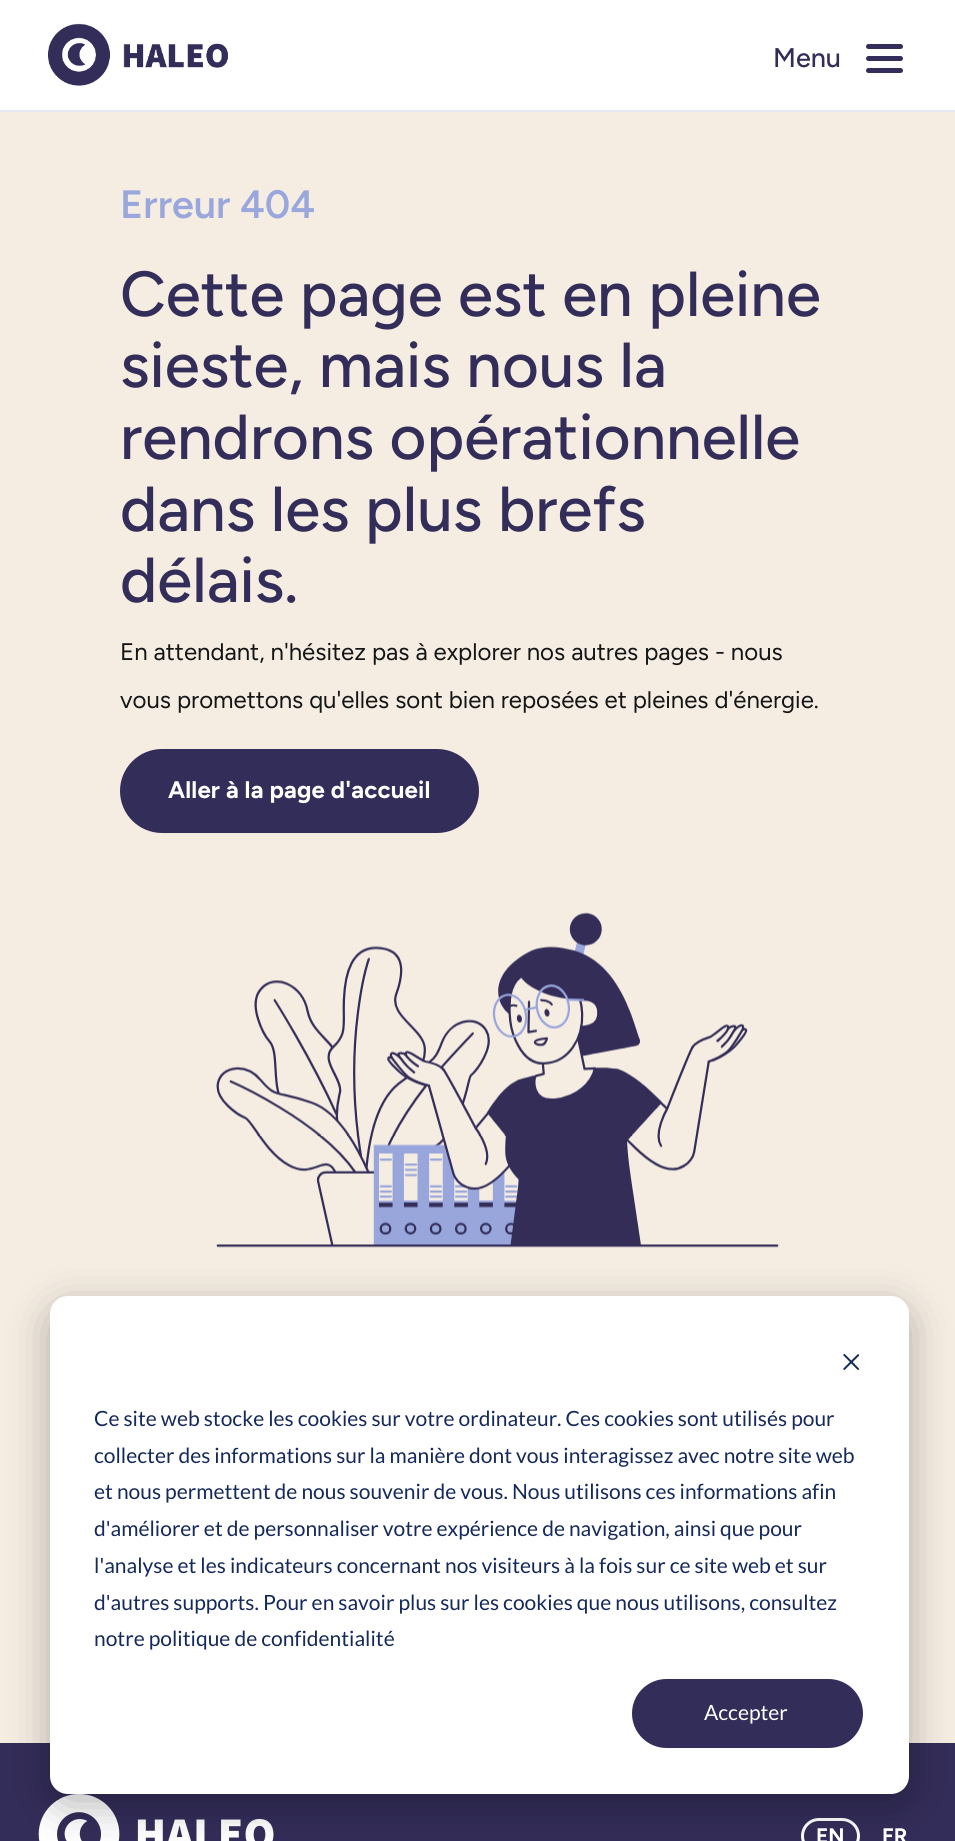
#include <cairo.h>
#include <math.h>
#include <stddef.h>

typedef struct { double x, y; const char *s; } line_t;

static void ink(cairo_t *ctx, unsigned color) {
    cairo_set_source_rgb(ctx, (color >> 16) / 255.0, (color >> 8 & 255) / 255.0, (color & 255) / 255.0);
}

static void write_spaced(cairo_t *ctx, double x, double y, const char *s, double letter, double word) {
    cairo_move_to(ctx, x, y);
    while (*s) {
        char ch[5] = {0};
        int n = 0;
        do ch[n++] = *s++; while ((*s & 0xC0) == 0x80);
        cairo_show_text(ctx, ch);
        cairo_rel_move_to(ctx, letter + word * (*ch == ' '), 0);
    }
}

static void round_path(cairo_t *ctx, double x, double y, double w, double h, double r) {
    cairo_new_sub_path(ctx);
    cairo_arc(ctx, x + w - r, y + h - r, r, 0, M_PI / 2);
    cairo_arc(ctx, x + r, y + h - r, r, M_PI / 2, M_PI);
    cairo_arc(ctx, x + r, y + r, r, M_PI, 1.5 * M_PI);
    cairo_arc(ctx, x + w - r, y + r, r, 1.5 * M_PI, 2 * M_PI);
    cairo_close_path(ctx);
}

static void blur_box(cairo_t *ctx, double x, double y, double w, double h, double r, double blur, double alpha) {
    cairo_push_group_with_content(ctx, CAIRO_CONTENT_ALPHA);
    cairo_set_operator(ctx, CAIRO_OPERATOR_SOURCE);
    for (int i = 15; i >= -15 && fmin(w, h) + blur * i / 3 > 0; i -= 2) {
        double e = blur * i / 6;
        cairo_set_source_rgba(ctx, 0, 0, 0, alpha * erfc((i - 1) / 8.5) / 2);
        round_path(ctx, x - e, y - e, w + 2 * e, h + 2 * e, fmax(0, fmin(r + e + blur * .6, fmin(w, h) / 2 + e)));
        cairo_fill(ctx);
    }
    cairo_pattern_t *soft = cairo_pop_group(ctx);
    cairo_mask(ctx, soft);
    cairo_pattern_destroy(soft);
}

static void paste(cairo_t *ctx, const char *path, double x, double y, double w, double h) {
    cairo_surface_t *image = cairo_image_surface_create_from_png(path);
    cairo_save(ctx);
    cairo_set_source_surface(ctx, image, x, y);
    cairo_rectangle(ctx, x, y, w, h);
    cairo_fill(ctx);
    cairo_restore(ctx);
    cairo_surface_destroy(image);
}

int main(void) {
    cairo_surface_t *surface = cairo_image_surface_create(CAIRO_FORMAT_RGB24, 955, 1841);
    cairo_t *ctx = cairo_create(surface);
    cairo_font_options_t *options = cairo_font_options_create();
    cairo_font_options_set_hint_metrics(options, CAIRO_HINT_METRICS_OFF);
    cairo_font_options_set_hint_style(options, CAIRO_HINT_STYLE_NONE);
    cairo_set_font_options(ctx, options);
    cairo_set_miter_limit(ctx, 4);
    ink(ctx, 0xF5EDE2);
    cairo_paint(ctx);
    ink(ctx, 0xE4E6F1);
    cairo_rectangle(ctx, 0, 110, 955, 2);
    cairo_fill(ctx);
    ink(ctx, 0xFFFFFF);
    cairo_rectangle(ctx, 0, 0, 955, 110);
    cairo_fill(ctx);
    paste(ctx, "media/1.png", 48, 23, 180, 63);
    cairo_select_font_face(ctx, "Figtree Medium", CAIRO_FONT_SLANT_NORMAL, CAIRO_FONT_WEIGHT_NORMAL);
    cairo_set_font_size(ctx, 27);
    ink(ctx, 0x332D59);
    cairo_move_to(ctx, 773, 67);
    cairo_show_text(ctx, "Menu");
    round_path(ctx, 866, 56, 37, 5, 2.5);
    cairo_fill(ctx);
    round_path(ctx, 866, 44, 37, 5, 2.5);
    cairo_fill(ctx);
    round_path(ctx, 866, 68, 37, 5, 2.5);
    cairo_fill(ctx);
    cairo_select_font_face(ctx, "Figtree SemiBold", CAIRO_FONT_SLANT_NORMAL, CAIRO_FONT_WEIGHT_NORMAL);
    cairo_set_font_size(ctx, 39.5);
    ink(ctx, 0x9AA7DC);
    cairo_move_to(ctx, 120, 218);
    cairo_show_text(ctx, "Erreur 404");
    cairo_select_font_face(ctx, "Figtree Medium", CAIRO_FONT_SLANT_NORMAL, CAIRO_FONT_WEIGHT_NORMAL);
    cairo_set_font_size(ctx, 63.5);
    ink(ctx, 0x332D59);
    {
        static const line_t items[] = {
            {120, 316, "Cette page est en pleine"},
            {120, 387, "sieste, mais nous la"},
            {120, 459, "rendrons opérationnelle"},
            {120, 531, "dans les plus brefs"},
            {120, 602, "délais."},
        };
        for (size_t i = 0; i < sizeof items / sizeof *items; i++) {
            cairo_move_to(ctx, items[i].x, items[i].y);
            cairo_show_text(ctx, items[i].s);
        }
    }
    cairo_select_font_face(ctx, "Figtree", CAIRO_FONT_SLANT_NORMAL, CAIRO_FONT_WEIGHT_NORMAL);
    cairo_set_font_size(ctx, 24);
    ink(ctx, 0x131516);
    cairo_move_to(ctx, 120, 660);
    cairo_show_text(ctx, "En attendant, n'hésitez pas à explorer nos autres pages - nous");
    cairo_move_to(ctx, 120, 708);
    cairo_show_text(ctx, "vous promettons qu'elles sont bien reposées et pleines d'énergie.");
    ink(ctx, 0x332D59);
    round_path(ctx, 121.5, 750.5, 356, 81, 40.5);
    cairo_fill_preserve(ctx);
    cairo_set_line_width(ctx, 3);
    cairo_stroke(ctx);
    cairo_select_font_face(ctx, "Figtree", CAIRO_FONT_SLANT_NORMAL, CAIRO_FONT_WEIGHT_BOLD);
    ink(ctx, 0xFFFFFF);
    write_spaced(ctx, 168, 798, "Aller à la page d'accueil", 0.15, 0);
    paste(ctx, "media/2.png", 216, 912, 563, 336);
    ink(ctx, 0x332D59);
    cairo_rectangle(ctx, 0, 1743, 955, 98);
    cairo_fill(ctx);
    paste(ctx, "media/4.png", 38, 1794, 236, 47);
    round_path(ctx, 802.5, 1819.5, 56, 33, 16.5);
    ink(ctx, 0xFFFFFF);
    cairo_stroke(ctx);
    ink(ctx, 0x000000);
    blur_box(ctx, 50, 1308, 859, 498, 18, 21, 0.28);
    ink(ctx, 0xFFFFFF);
    round_path(ctx, 50, 1296, 859, 498, 18);
    cairo_fill(ctx);
    paste(ctx, "media/3.png", 843, 1354, 17, 16);
    cairo_select_font_face(ctx, "Lato", CAIRO_FONT_SLANT_NORMAL, CAIRO_FONT_WEIGHT_NORMAL);
    cairo_set_font_size(ctx, 21);
    ink(ctx, 0x15295A);
    {
        static const line_t items[] = {
            {94, 1426, "Ce site web stocke les cookies sur votre ordinateur. Ces cookies sont utilisés pour"},
            {94, 1463, "collecter des informations sur la manière dont vous interagissez avec notre site web"},
            {94, 1499, "et nous permettent de nous souvenir de vous. Nous utilisons ces informations afin"},
            {94, 1536, "d'améliorer et de personnaliser votre expérience de navigation, ainsi que pour"},
            {94, 1573, "l'analyse et les indicateurs concernant nos visiteurs à la fois sur ce site web et sur"},
            {94, 1610, "d'autres supports. Pour en savoir plus sur les cookies que nous utilisons, consultez"},
            {94, 1646, "notre politique de confidentialité"},
        };
        for (size_t i = 0; i < sizeof items / sizeof *items; i++) {
            cairo_move_to(ctx, items[i].x, items[i].y);
            cairo_show_text(ctx, items[i].s);
        }
    }
    ink(ctx, 0x332D59);
    round_path(ctx, 633, 1680, 229, 67, 33.5);
    cairo_fill_preserve(ctx);
    cairo_set_line_width(ctx, 2);
    cairo_stroke(ctx);
    ink(ctx, 0xFFFFFF);
    cairo_move_to(ctx, 704, 1720);
    cairo_show_text(ctx, "Accepter");
    cairo_select_font_face(ctx, "Figtree", CAIRO_FONT_SLANT_NORMAL, CAIRO_FONT_WEIGHT_BOLD);
    cairo_move_to(ctx, 816, 1843);
    cairo_show_text(ctx, "EN");
    cairo_move_to(ctx, 882, 1843);
    cairo_show_text(ctx, "FR");
    cairo_surface_write_to_png(surface, "image.png");
    cairo_font_options_destroy(options);
    cairo_destroy(ctx);
    cairo_surface_destroy(surface);
    return 0;
}
